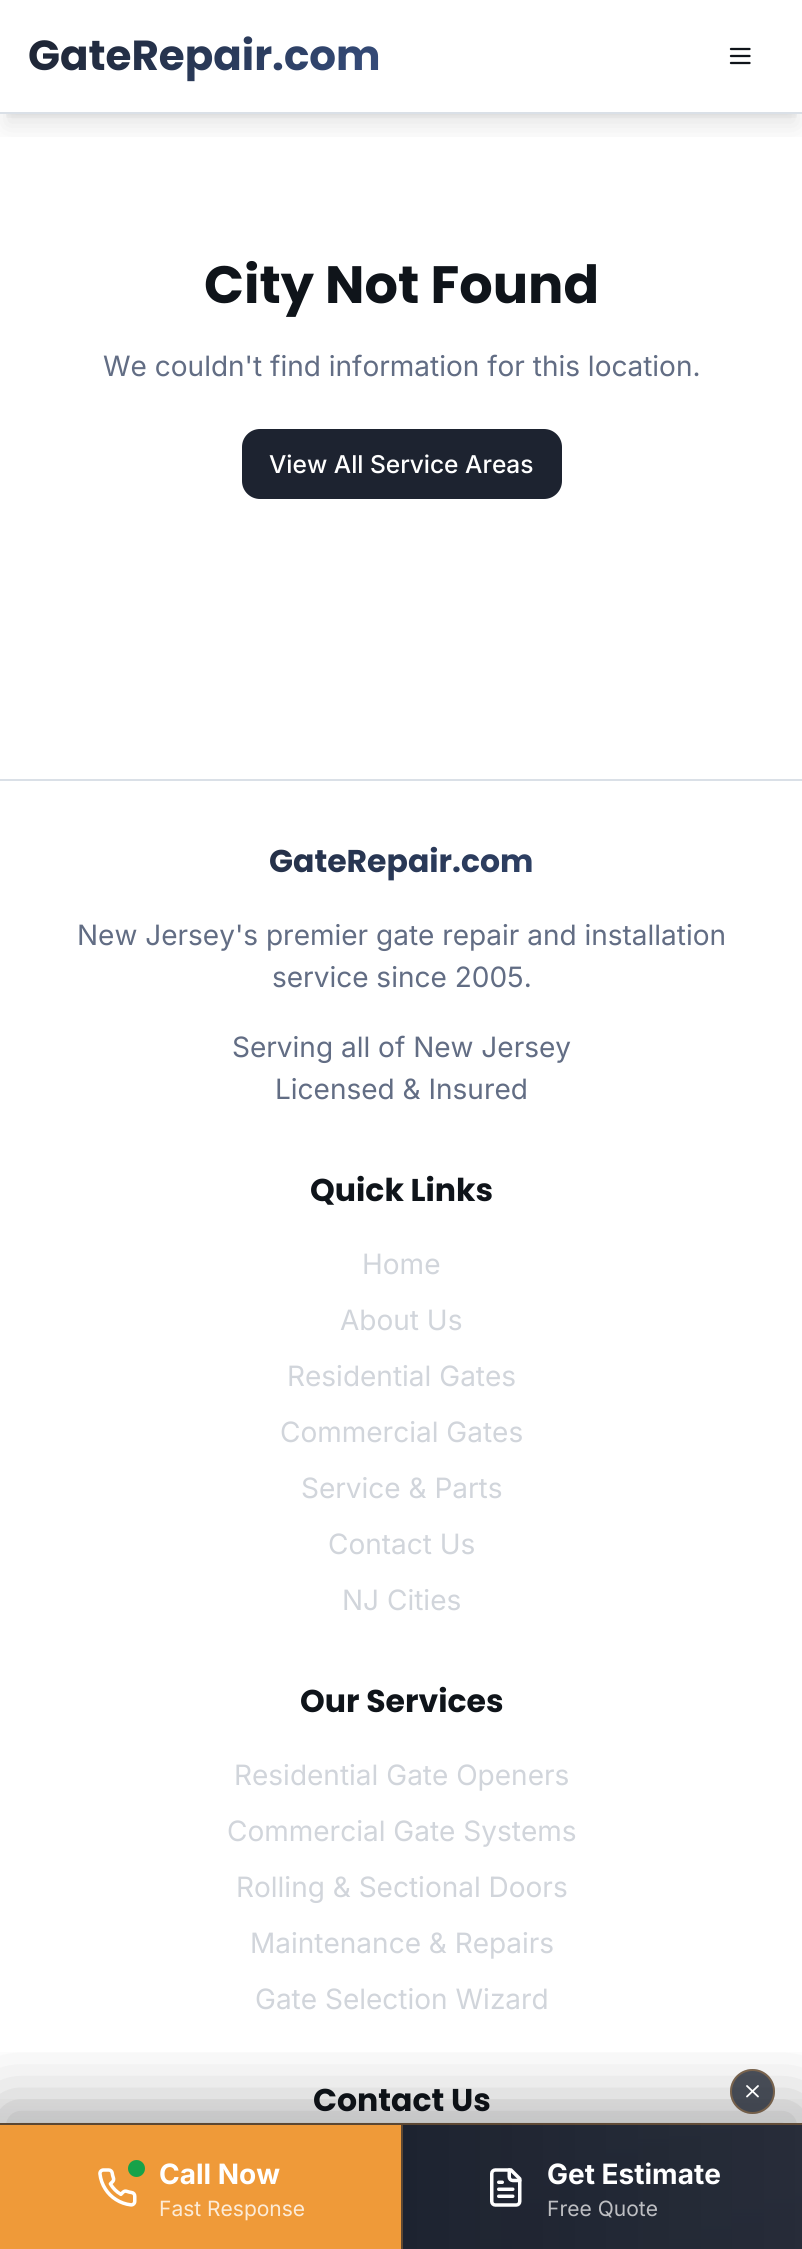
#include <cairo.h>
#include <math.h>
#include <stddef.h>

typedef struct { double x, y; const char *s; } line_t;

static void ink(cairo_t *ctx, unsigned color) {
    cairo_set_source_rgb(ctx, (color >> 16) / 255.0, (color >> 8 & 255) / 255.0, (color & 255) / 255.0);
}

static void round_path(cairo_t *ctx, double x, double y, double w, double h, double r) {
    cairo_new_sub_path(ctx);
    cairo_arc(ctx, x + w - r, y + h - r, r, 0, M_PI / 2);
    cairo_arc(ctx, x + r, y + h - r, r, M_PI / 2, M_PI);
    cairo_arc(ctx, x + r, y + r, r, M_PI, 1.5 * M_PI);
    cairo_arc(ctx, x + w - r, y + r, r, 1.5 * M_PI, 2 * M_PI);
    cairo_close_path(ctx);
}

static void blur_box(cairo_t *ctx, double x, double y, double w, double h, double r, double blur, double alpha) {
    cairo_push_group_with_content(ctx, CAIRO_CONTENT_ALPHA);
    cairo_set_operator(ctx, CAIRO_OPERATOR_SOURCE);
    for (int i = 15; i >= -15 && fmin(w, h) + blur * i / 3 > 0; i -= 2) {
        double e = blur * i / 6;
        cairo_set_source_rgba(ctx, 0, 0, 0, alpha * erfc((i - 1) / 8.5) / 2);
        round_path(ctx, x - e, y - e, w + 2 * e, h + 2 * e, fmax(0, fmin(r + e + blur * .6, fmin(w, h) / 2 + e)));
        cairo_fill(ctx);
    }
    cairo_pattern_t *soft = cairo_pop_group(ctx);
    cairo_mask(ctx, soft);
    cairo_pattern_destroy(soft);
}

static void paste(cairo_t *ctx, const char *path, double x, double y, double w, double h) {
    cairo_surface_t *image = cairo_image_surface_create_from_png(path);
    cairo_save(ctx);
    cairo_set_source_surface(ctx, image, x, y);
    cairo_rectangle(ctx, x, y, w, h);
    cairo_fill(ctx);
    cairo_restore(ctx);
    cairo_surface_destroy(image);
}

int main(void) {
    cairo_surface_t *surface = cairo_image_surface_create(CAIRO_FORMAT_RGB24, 802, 2249);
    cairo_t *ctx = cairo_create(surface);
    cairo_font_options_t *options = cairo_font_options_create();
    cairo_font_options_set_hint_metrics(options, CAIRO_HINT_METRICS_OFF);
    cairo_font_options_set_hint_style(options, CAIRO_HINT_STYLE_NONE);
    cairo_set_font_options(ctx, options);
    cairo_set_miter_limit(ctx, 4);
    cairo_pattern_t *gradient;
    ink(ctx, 0xFFFFFF);
    cairo_paint(ctx);
    cairo_save(ctx);
    cairo_rectangle(ctx, 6, 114, 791, 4);
    cairo_clip(ctx);
    ink(ctx, 0x000000);
    blur_box(ctx, 7, 14, 789, 100, 0, 5, 0.1);
    cairo_restore(ctx);
    cairo_save(ctx);
    cairo_rectangle(ctx, 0, 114, 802, 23);
    cairo_clip(ctx);
    ink(ctx, 0x000000);
    blur_box(ctx, 5, 23, 793, 103, 0, 13, 0.1);
    cairo_restore(ctx);
    ink(ctx, 0xDAE0E7);
    cairo_rectangle(ctx, 0, 112, 802, 2);
    cairo_fill(ctx);
    cairo_select_font_face(ctx, "Poppins", CAIRO_FONT_SLANT_NORMAL, CAIRO_FONT_WEIGHT_BOLD);
    cairo_set_font_size(ctx, 42);
    gradient = cairo_pattern_create_linear(102, -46, 306, 158);
    cairo_pattern_add_color_stop_rgba(gradient, 0, 0.114, 0.137, 0.188, 1);
    cairo_pattern_add_color_stop_rgba(gradient, 0.5, 0.161, 0.22, 0.337, 1);
    cairo_pattern_add_color_stop_rgba(gradient, 1, 0.212, 0.302, 0.49, 1);
    cairo_set_source(ctx, gradient);
    cairo_pattern_destroy(gradient);
    cairo_move_to(ctx, 28, 70);
    cairo_show_text(ctx, "GateRepair.com");
    cairo_new_path(ctx);
    cairo_move_to(ctx, 731, 56);
    cairo_line_to(ctx, 749.5, 56);
    cairo_move_to(ctx, 731, 49);
    cairo_line_to(ctx, 749.5, 49);
    cairo_move_to(ctx, 731, 63);
    cairo_line_to(ctx, 749.5, 63);
    ink(ctx, 0x0F141A);
    cairo_set_line_width(ctx, 2.3);
    cairo_set_line_cap(ctx, CAIRO_LINE_CAP_ROUND);
    cairo_set_line_join(ctx, CAIRO_LINE_JOIN_ROUND);
    cairo_stroke(ctx);
    cairo_set_font_size(ctx, 52.5);
    cairo_move_to(ctx, 204, 303);
    cairo_show_text(ctx, "City Not Found");
    cairo_select_font_face(ctx, "Inter", CAIRO_FONT_SLANT_NORMAL, CAIRO_FONT_WEIGHT_NORMAL);
    cairo_set_font_size(ctx, 28);
    ink(ctx, 0x626D84);
    cairo_move_to(ctx, 103, 376);
    cairo_show_text(ctx, "We couldn't find information for this location.");
    ink(ctx, 0x1D2330);
    round_path(ctx, 242, 429, 320, 70, 18);
    cairo_fill(ctx);
    cairo_select_font_face(ctx, "Inter Medium", CAIRO_FONT_SLANT_NORMAL, CAIRO_FONT_WEIGHT_NORMAL);
    cairo_set_font_size(ctx, 24.5);
    ink(ctx, 0xFFFFFF);
    cairo_move_to(ctx, 269, 473);
    cairo_show_text(ctx, "View All Service Areas");
    ink(ctx, 0xDAE0E7);
    cairo_rectangle(ctx, 0, 779, 802, 2);
    cairo_fill(ctx);
    cairo_select_font_face(ctx, "Poppins", CAIRO_FONT_SLANT_NORMAL, CAIRO_FONT_WEIGHT_BOLD);
    cairo_set_font_size(ctx, 31.5);
    gradient = cairo_pattern_create_linear(203, 662, 601, 1060);
    cairo_pattern_add_color_stop_rgba(gradient, 0, 0.114, 0.137, 0.188, 1);
    cairo_pattern_add_color_stop_rgba(gradient, 0.5, 0.161, 0.22, 0.337, 1);
    cairo_pattern_add_color_stop_rgba(gradient, 1, 0.212, 0.302, 0.49, 1);
    cairo_set_source(ctx, gradient);
    cairo_pattern_destroy(gradient);
    cairo_move_to(ctx, 269, 872);
    cairo_show_text(ctx, "GateRepair.com");
    cairo_select_font_face(ctx, "Inter", CAIRO_FONT_SLANT_NORMAL, CAIRO_FONT_WEIGHT_NORMAL);
    cairo_set_font_size(ctx, 28);
    ink(ctx, 0x626D84);
    {
        static const line_t items[] = {
            {77, 945, "New Jersey's premier gate repair and installation"},
            {272, 987, "service since 2005."},
            {232, 1057, "Serving all of New Jersey"},
            {275, 1099, "Licensed & Insured"},
        };
        for (size_t i = 0; i < sizeof items / sizeof *items; i++) {
            cairo_move_to(ctx, items[i].x, items[i].y);
            cairo_show_text(ctx, items[i].s);
        }
    }
    cairo_select_font_face(ctx, "Poppins", CAIRO_FONT_SLANT_NORMAL, CAIRO_FONT_WEIGHT_BOLD);
    cairo_set_font_size(ctx, 31.5);
    ink(ctx, 0x0F141A);
    cairo_move_to(ctx, 310, 1201);
    cairo_show_text(ctx, "Quick Links");
    cairo_select_font_face(ctx, "Inter", CAIRO_FONT_SLANT_NORMAL, CAIRO_FONT_WEIGHT_NORMAL);
    cairo_set_font_size(ctx, 28);
    ink(ctx, 0xD1D5DB);
    {
        static const line_t items[] = {
            {362, 1274, "Home"},
            {340, 1330, "About Us"},
            {287, 1386, "Residential Gates"},
            {280, 1442, "Commercial Gates"},
            {301, 1498, "Service & Parts"},
            {328, 1554, "Contact Us"},
            {342, 1610, "NJ Cities"},
        };
        for (size_t i = 0; i < sizeof items / sizeof *items; i++) {
            cairo_move_to(ctx, items[i].x, items[i].y);
            cairo_show_text(ctx, items[i].s);
        }
    }
    cairo_select_font_face(ctx, "Poppins", CAIRO_FONT_SLANT_NORMAL, CAIRO_FONT_WEIGHT_BOLD);
    cairo_set_font_size(ctx, 31.5);
    ink(ctx, 0x0F141A);
    cairo_move_to(ctx, 300, 1712);
    cairo_show_text(ctx, "Our Services");
    cairo_select_font_face(ctx, "Inter", CAIRO_FONT_SLANT_NORMAL, CAIRO_FONT_WEIGHT_NORMAL);
    cairo_set_font_size(ctx, 28);
    ink(ctx, 0xD1D5DB);
    {
        static const line_t items[] = {
            {234, 1785, "Residential Gate Openers"},
            {227, 1841, "Commercial Gate Systems"},
            {236, 1897, "Rolling & Sectional Doors"},
            {250, 1953, "Maintenance & Repairs"},
            {255, 2009, "Gate Selection Wizard"},
        };
        for (size_t i = 0; i < sizeof items / sizeof *items; i++) {
            cairo_move_to(ctx, items[i].x, items[i].y);
            cairo_show_text(ctx, items[i].s);
        }
    }
    cairo_select_font_face(ctx, "Poppins", CAIRO_FONT_SLANT_NORMAL, CAIRO_FONT_WEIGHT_BOLD);
    cairo_set_font_size(ctx, 31.5);
    ink(ctx, 0x0F141A);
    cairo_move_to(ctx, 313, 2111);
    cairo_show_text(ctx, "Contact Us");
    gradient = cairo_pattern_create_linear(402, 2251, 402, 2081);
    cairo_pattern_add_color_stop_rgba(gradient, 0, 0.114, 0.137, 0.188, 0.2);
    cairo_pattern_add_color_stop_rgba(gradient, 1, 0.114, 0.137, 0.188, 0);
    cairo_set_source(ctx, gradient);
    cairo_pattern_destroy(gradient);
    cairo_rectangle(ctx, 0, 2099, 802, 150);
    cairo_fill(ctx);
    cairo_save(ctx);
    cairo_rectangle(ctx, 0, 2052, 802, 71);
    cairo_clip(ctx);
    ink(ctx, 0x000000);
    blur_box(ctx, 0, 2105, 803, 128, 0, 35, 0.3);
    cairo_restore(ctx);
    gradient = cairo_pattern_create_linear(0, 2188, 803, 2188);
    cairo_pattern_add_color_stop_rgba(gradient, 0, 0.114, 0.137, 0.188, 1);
    cairo_pattern_add_color_stop_rgba(gradient, 0.5, 0.114, 0.137, 0.188, 1);
    cairo_pattern_add_color_stop_rgba(gradient, 1, 0.114, 0.137, 0.188, 0.95);
    cairo_set_source(ctx, gradient);
    cairo_pattern_destroy(gradient);
    cairo_rectangle(ctx, 0, 2123, 802, 126);
    cairo_fill(ctx);
    cairo_set_source_rgba(ctx, 0.937, 0.604, 0.224, 0.3);
    cairo_rectangle(ctx, 0, 2123, 802, 2);
    cairo_fill(ctx);
    cairo_set_source_rgba(ctx, 0.114, 0.137, 0.188, 0.8);
    cairo_arc(ctx, 752.5, 2091.5, 22.5, 0, 2 * M_PI);
    cairo_fill(ctx);
    cairo_arc(ctx, 752.5, 2091.5, 21.5, 0, 2 * M_PI);
    cairo_set_source_rgba(ctx, 0.937, 0.604, 0.224, 0.3);
    cairo_set_line_width(ctx, 2);
    cairo_set_line_cap(ctx, CAIRO_LINE_CAP_BUTT);
    cairo_set_line_join(ctx, CAIRO_LINE_JOIN_MITER);
    cairo_stroke(ctx);
    cairo_new_path(ctx);
    cairo_move_to(ctx, 758, 2086);
    cairo_line_to(ctx, 747, 2096.5);
    cairo_move_to(ctx, 747, 2086);
    cairo_line_to(ctx, 758, 2096.5);
    ink(ctx, 0xFFFFFF);
    cairo_set_line_width(ctx, 1.8);
    cairo_set_line_cap(ctx, CAIRO_LINE_CAP_ROUND);
    cairo_set_line_join(ctx, CAIRO_LINE_JOIN_ROUND);
    cairo_stroke(ctx);
    ink(ctx, 0xEF9A39);
    cairo_rectangle(ctx, 0, 2125, 401, 124);
    cairo_fill(ctx);
    paste(ctx, "media/1.png", 98, 2168, 39, 39);
    ink(ctx, 0x16A249);
    cairo_arc(ctx, 136.5, 2168.5, 8.5, 0, 2 * M_PI);
    cairo_fill(ctx);
    cairo_select_font_face(ctx, "Inter", CAIRO_FONT_SLANT_NORMAL, CAIRO_FONT_WEIGHT_BOLD);
    cairo_set_font_size(ctx, 28);
    ink(ctx, 0xFFFFFF);
    cairo_move_to(ctx, 159, 2184);
    cairo_show_text(ctx, "Call Now");
    cairo_select_font_face(ctx, "Inter", CAIRO_FONT_SLANT_NORMAL, CAIRO_FONT_WEIGHT_NORMAL);
    cairo_set_font_size(ctx, 21);
    ink(ctx, 0xFCEBD7);
    cairo_move_to(ctx, 159, 2216);
    cairo_show_text(ctx, "Fast Response");
    ink(ctx, 0x5C4733);
    cairo_rectangle(ctx, 401, 2125, 2, 124);
    cairo_fill(ctx);
    paste(ctx, "media/2.png", 490, 2168, 32, 39);
    cairo_select_font_face(ctx, "Inter", CAIRO_FONT_SLANT_NORMAL, CAIRO_FONT_WEIGHT_BOLD);
    cairo_set_font_size(ctx, 28);
    ink(ctx, 0xFFFFFF);
    cairo_move_to(ctx, 547, 2184);
    cairo_show_text(ctx, "Get Estimate");
    cairo_select_font_face(ctx, "Inter", CAIRO_FONT_SLANT_NORMAL, CAIRO_FONT_WEIGHT_NORMAL);
    cairo_set_font_size(ctx, 21);
    ink(ctx, 0xBDBEC2);
    cairo_move_to(ctx, 547, 2216);
    cairo_show_text(ctx, "Free Quote");
    cairo_surface_write_to_png(surface, "image.png");
    cairo_font_options_destroy(options);
    cairo_destroy(ctx);
    cairo_surface_destroy(surface);
    return 0;
}
